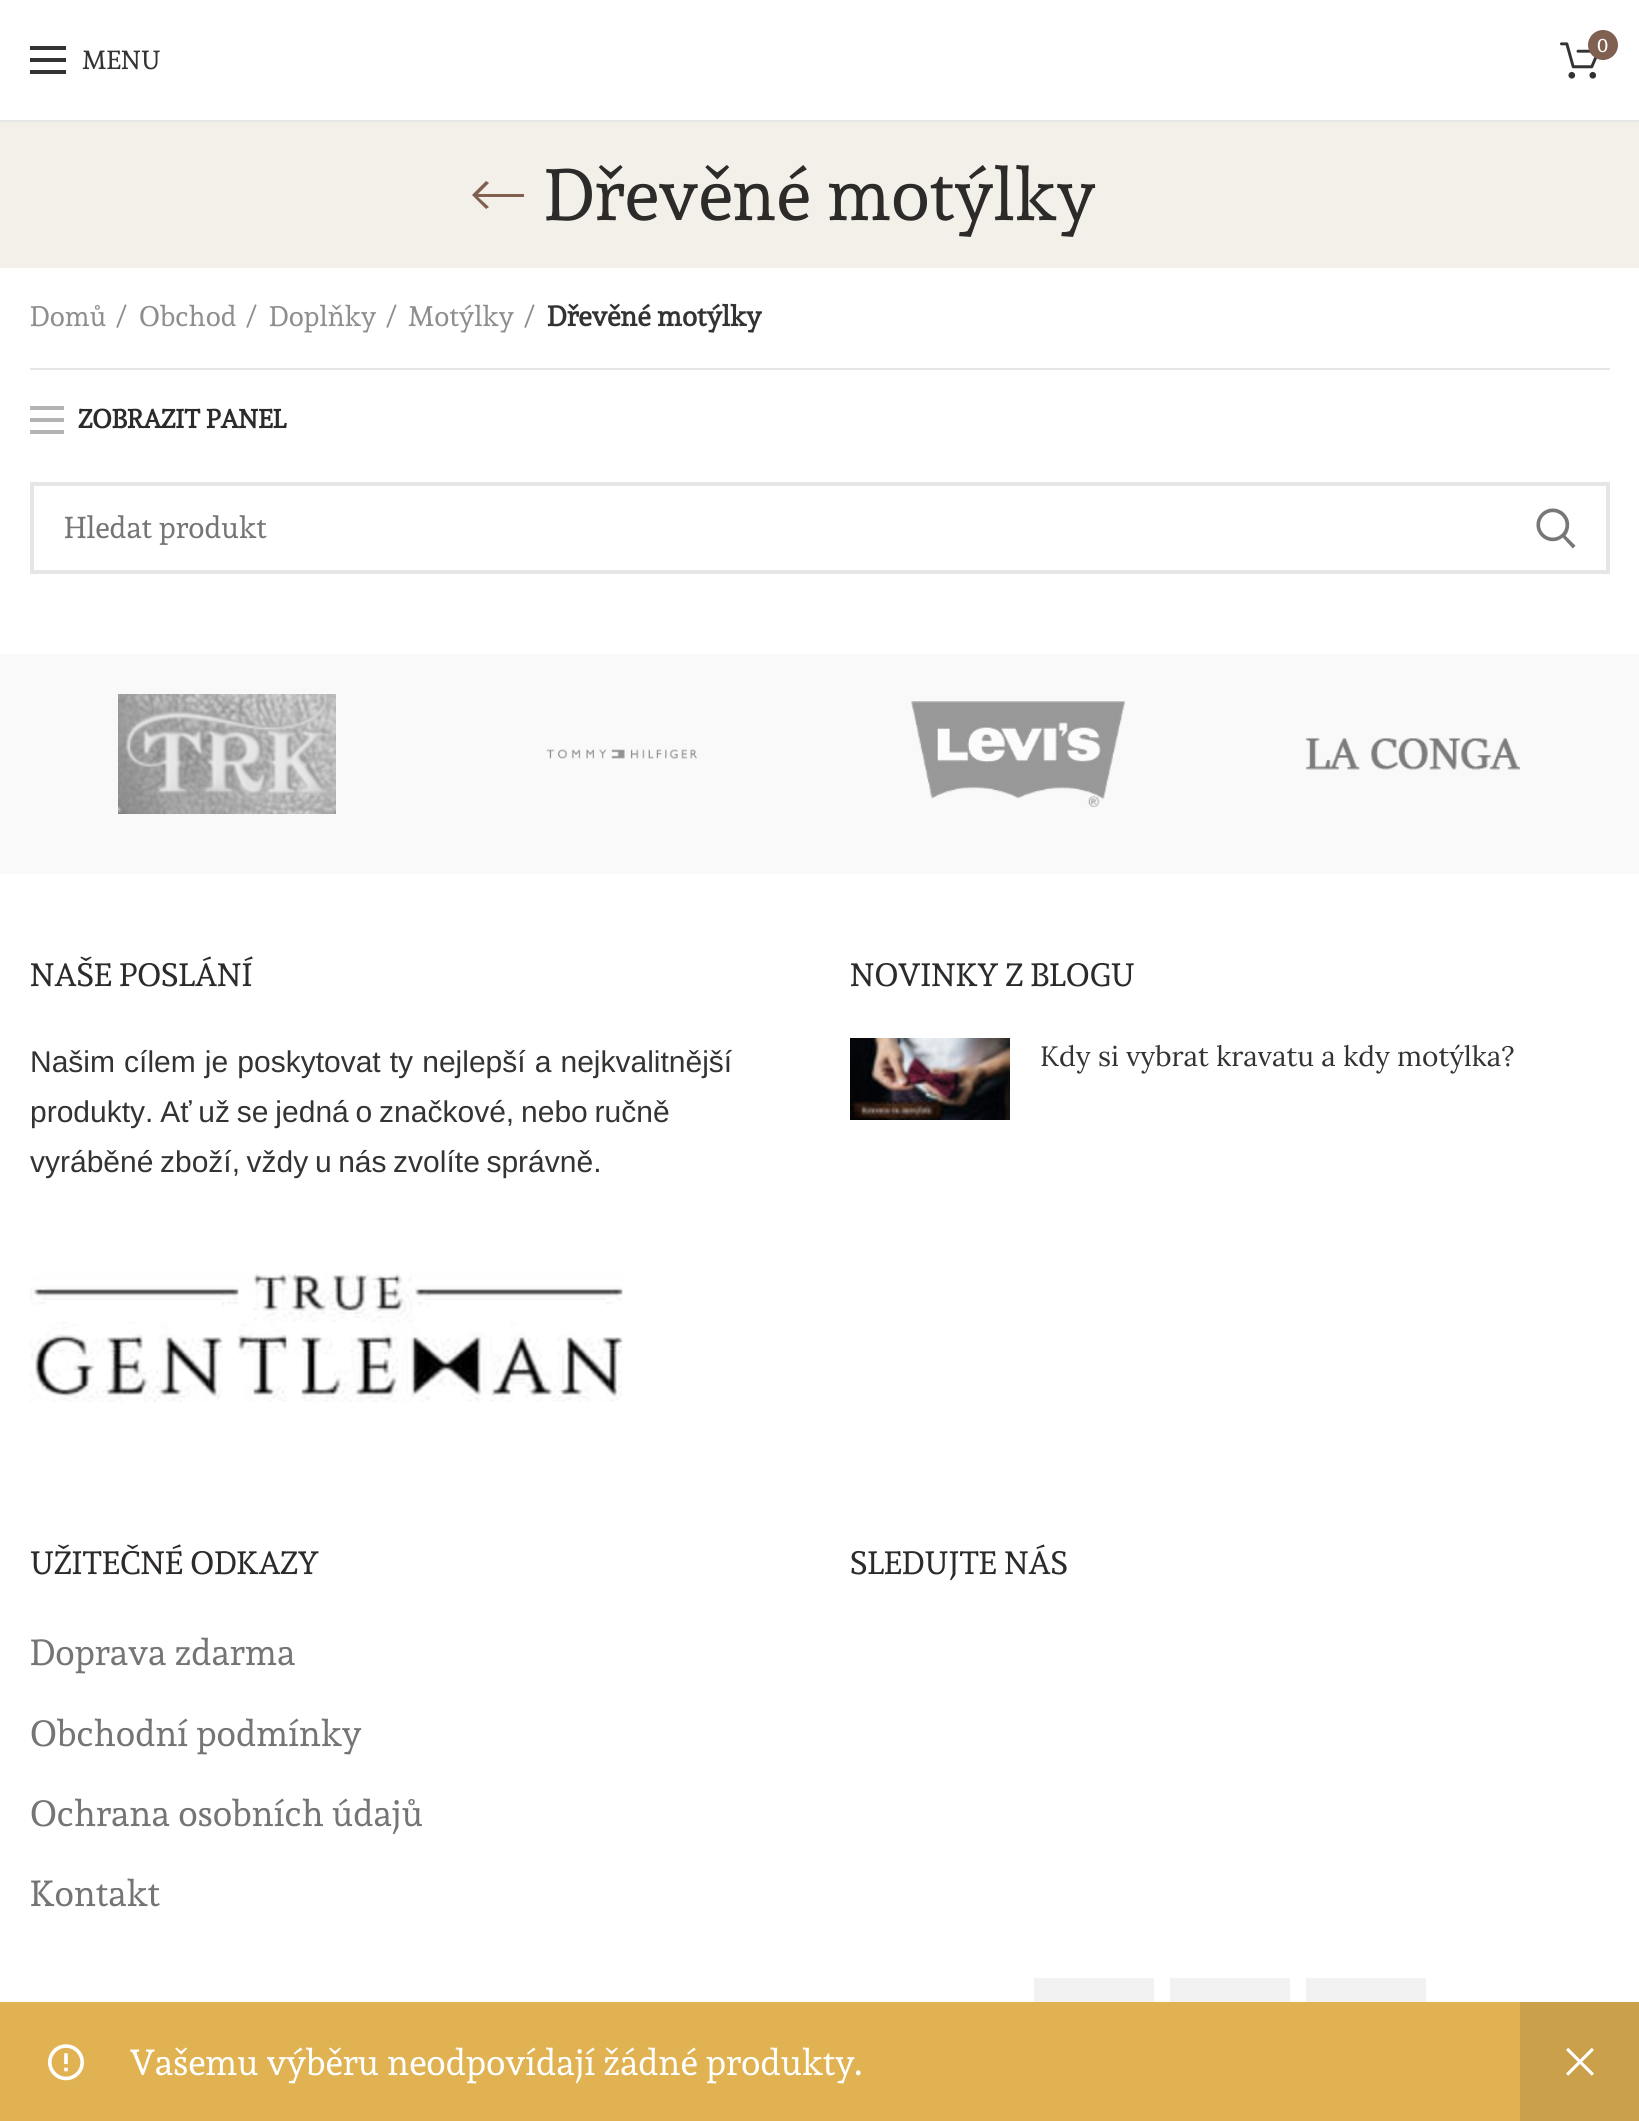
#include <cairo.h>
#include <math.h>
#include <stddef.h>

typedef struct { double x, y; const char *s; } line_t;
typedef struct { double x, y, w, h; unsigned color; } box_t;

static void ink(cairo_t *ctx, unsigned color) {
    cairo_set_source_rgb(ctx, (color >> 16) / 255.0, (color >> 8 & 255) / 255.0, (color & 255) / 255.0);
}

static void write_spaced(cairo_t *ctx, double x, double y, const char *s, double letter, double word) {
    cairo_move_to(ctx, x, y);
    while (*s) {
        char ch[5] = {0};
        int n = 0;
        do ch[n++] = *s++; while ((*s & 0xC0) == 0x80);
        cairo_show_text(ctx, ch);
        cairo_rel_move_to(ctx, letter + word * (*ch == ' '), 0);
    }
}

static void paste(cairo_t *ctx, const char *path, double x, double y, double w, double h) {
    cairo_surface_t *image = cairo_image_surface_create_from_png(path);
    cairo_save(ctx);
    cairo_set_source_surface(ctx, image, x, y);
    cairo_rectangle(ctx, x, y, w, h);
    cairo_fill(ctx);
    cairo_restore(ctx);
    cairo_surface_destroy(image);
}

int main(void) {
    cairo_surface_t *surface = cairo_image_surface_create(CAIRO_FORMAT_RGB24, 1639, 2121);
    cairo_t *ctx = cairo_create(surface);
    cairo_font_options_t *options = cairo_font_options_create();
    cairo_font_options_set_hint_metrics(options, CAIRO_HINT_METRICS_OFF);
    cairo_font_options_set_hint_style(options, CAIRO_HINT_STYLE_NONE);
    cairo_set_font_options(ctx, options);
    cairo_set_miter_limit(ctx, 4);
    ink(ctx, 0xFFFFFF);
    cairo_paint(ctx);
    ink(ctx, 0xE6E6E6);
    cairo_rectangle(ctx, 0, 120, 1639, 2);
    cairo_fill(ctx);
    paste(ctx, "media/1.png", 1560, 42, 38, 37);
    ink(ctx, 0x7F6051);
    cairo_arc(ctx, 1603, 45, 15, 0, 2 * M_PI);
    cairo_fill(ctx);
    cairo_select_font_face(ctx, "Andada", CAIRO_FONT_SLANT_NORMAL, CAIRO_FONT_WEIGHT_NORMAL);
    cairo_set_font_size(ctx, 20);
    ink(ctx, 0xFFFFFF);
    cairo_move_to(ctx, 1597, 52);
    cairo_show_text(ctx, "0");
    {
        static const box_t items[] = {
            {30, 58, 36, 4, 0x333333},
            {30, 46, 36, 4, 0x333333},
            {30, 70, 36, 4, 0x333333},
        };
        for (size_t i = 0; i < sizeof items / sizeof *items; i++) {
            ink(ctx, items[i].color);
            cairo_rectangle(ctx, items[i].x, items[i].y, items[i].w, items[i].h);
            cairo_fill(ctx);
        }
    }
    cairo_set_font_size(ctx, 26);
    cairo_move_to(ctx, 82, 69);
    cairo_show_text(ctx, "MENU");
    ink(ctx, 0xF3F0E9);
    cairo_rectangle(ctx, 0, 122, 1639, 146);
    cairo_fill(ctx);
    ink(ctx, 0x7F6051);
    cairo_new_path(ctx);
    cairo_move_to(ctx, 524, 194);
    cairo_line_to(ctx, 524, 197);
    cairo_line_to(ctx, 478, 197);
    cairo_line_to(ctx, 489, 207);
    cairo_line_to(ctx, 486, 209);
    cairo_line_to(ctx, 472, 195);
    cairo_line_to(ctx, 486, 181);
    cairo_line_to(ctx, 489, 183);
    cairo_line_to(ctx, 478, 194);
    cairo_close_path(ctx);
    cairo_fill(ctx);
    cairo_set_font_size(ctx, 72);
    ink(ctx, 0x2D2A2A);
    cairo_move_to(ctx, 544, 220);
    cairo_show_text(ctx, "Dřevěné motýlky");
    ink(ctx, 0xE6E6E6);
    cairo_rectangle(ctx, 30, 368, 1580, 2);
    cairo_fill(ctx);
    cairo_set_font_size(ctx, 28);
    ink(ctx, 0x8E8E8E);
    {
        static const line_t items[] = {
            {30, 326, "Domů"},
            {116, 326, "/"},
            {139, 326, "Obchod"},
            {246, 326, "/"},
            {269, 326, "Doplňky"},
            {386, 326, "/"},
            {408, 326, "Motýlky"},
            {524, 326, "/"},
        };
        for (size_t i = 0; i < sizeof items / sizeof *items; i++) {
            cairo_move_to(ctx, items[i].x, items[i].y);
            cairo_show_text(ctx, items[i].s);
        }
    }
    cairo_select_font_face(ctx, "Andada", CAIRO_FONT_SLANT_NORMAL, CAIRO_FONT_WEIGHT_BOLD);
    ink(ctx, 0x333333);
    cairo_move_to(ctx, 547, 326);
    cairo_show_text(ctx, "Dřevěné motýlky");
    {
        static const box_t items[] = {
            {30, 418, 34, 4, 0xB3B3B3},
            {30, 406, 34, 4, 0xB3B3B3},
            {30, 430, 34, 4, 0xB3B3B3},
        };
        for (size_t i = 0; i < sizeof items / sizeof *items; i++) {
            ink(ctx, items[i].color);
            cairo_rectangle(ctx, items[i].x, items[i].y, items[i].w, items[i].h);
            cairo_fill(ctx);
        }
    }
    cairo_set_font_size(ctx, 26);
    ink(ctx, 0x2D2A2A);
    cairo_move_to(ctx, 78, 428);
    cairo_show_text(ctx, "ZOBRAZIT PANEL");
    cairo_rectangle(ctx, 32, 484, 1576, 88);
    ink(ctx, 0xE6E6E6);
    cairo_set_line_width(ctx, 4);
    cairo_stroke(ctx);
    cairo_select_font_face(ctx, "Andada", CAIRO_FONT_SLANT_NORMAL, CAIRO_FONT_WEIGHT_NORMAL);
    cairo_set_font_size(ctx, 30);
    ink(ctx, 0x757575);
    cairo_move_to(ctx, 64, 538);
    cairo_show_text(ctx, "Hledat produkt");
    paste(ctx, "media/2.png", 1536, 508, 40, 41);
    ink(ctx, 0xE0B252);
    cairo_rectangle(ctx, 0, 2002, 1520, 119);
    cairo_fill(ctx);
    paste(ctx, "media/3.png", 48, 2044, 36, 37);
    cairo_set_font_size(ctx, 36);
    ink(ctx, 0xFFFFFF);
    cairo_move_to(ctx, 130, 2075);
    cairo_show_text(ctx, "Vašemu výběru neodpovídají žádné produkty.");
    ink(ctx, 0xCAA04A);
    cairo_rectangle(ctx, 1520, 2002, 119, 119);
    cairo_fill(ctx);
    paste(ctx, "media/4.png", 1566, 2047, 28, 29);
    ink(ctx, 0xF9F9F9);
    cairo_rectangle(ctx, 0, 654, 1639, 220);
    cairo_fill(ctx);
    paste(ctx, "media/5.png", 118, 694, 218, 120);
    paste(ctx, "media/6.png", 546, 749, 151, 10);
    paste(ctx, "media/7.png", 911, 701, 214, 107);
    paste(ctx, "media/8.png", 1305, 738, 215, 32);
    cairo_set_font_size(ctx, 32);
    ink(ctx, 0x2D2A2A);
    cairo_move_to(ctx, 30, 986);
    cairo_show_text(ctx, "NAŠE POSLÁNÍ");
    cairo_select_font_face(ctx, "Liberation Sans", CAIRO_FONT_SLANT_NORMAL, CAIRO_FONT_WEIGHT_NORMAL);
    cairo_set_font_size(ctx, 30);
    ink(ctx, 0x333333);
    write_spaced(ctx, 30, 1072, "Našim cílem je poskytovat ty nejlepší a nejkvalitnější", 0, 0.75);
    write_spaced(ctx, 30, 1122, "produkty. Ať už se jedná o značkové, nebo ručně", 0, -1.5);
    write_spaced(ctx, 30, 1172, "vyráběné zboží, vždy u nás zvolíte správně.", 0, -1.75);
    paste(ctx, "media/9.png", 30, 1273, 593, 129);
    cairo_select_font_face(ctx, "Andada", CAIRO_FONT_SLANT_NORMAL, CAIRO_FONT_WEIGHT_NORMAL);
    cairo_set_font_size(ctx, 32);
    ink(ctx, 0x2D2A2A);
    cairo_move_to(ctx, 850, 986);
    cairo_show_text(ctx, "NOVINKY Z BLOGU");
    paste(ctx, "media/10.png", 850, 1038, 160, 82);
    cairo_select_font_face(ctx, "Lora", CAIRO_FONT_SLANT_NORMAL, CAIRO_FONT_WEIGHT_NORMAL);
    cairo_set_font_size(ctx, 28);
    ink(ctx, 0x333333);
    cairo_move_to(ctx, 1040, 1066);
    cairo_show_text(ctx, "Kdy si vybrat kravatu a kdy motýlka?");
    cairo_select_font_face(ctx, "Andada", CAIRO_FONT_SLANT_NORMAL, CAIRO_FONT_WEIGHT_NORMAL);
    cairo_set_font_size(ctx, 32);
    ink(ctx, 0x2D2A2A);
    cairo_move_to(ctx, 30, 1574);
    cairo_show_text(ctx, "UŽITEČNÉ ODKAZY");
    cairo_set_font_size(ctx, 36);
    ink(ctx, 0x757575);
    {
        static const line_t items[] = {
            {30, 1665, "Doprava zdarma"},
            {30, 1746, "Obchodní podmínky"},
            {30, 1826, "Ochrana osobních údajů"},
            {30, 1906, "Kontakt"},
        };
        for (size_t i = 0; i < sizeof items / sizeof *items; i++) {
            cairo_move_to(ctx, items[i].x, items[i].y);
            cairo_show_text(ctx, items[i].s);
        }
    }
    cairo_set_font_size(ctx, 32);
    ink(ctx, 0x2D2A2A);
    cairo_move_to(ctx, 850, 1574);
    cairo_show_text(ctx, "SLEDUJTE NÁS");
    {
        static const box_t items[] = {
            {1034, 1978, 120, 24, 0xF2F2F2},
            {1170, 1978, 120, 24, 0xF2F2F2},
            {1306, 1978, 120, 24, 0xF2F2F2},
        };
        for (size_t i = 0; i < sizeof items / sizeof *items; i++) {
            ink(ctx, items[i].color);
            cairo_rectangle(ctx, items[i].x, items[i].y, items[i].w, items[i].h);
            cairo_fill(ctx);
        }
    }
    cairo_surface_write_to_png(surface, "image.png");
    cairo_font_options_destroy(options);
    cairo_destroy(ctx);
    cairo_surface_destroy(surface);
    return 0;
}
